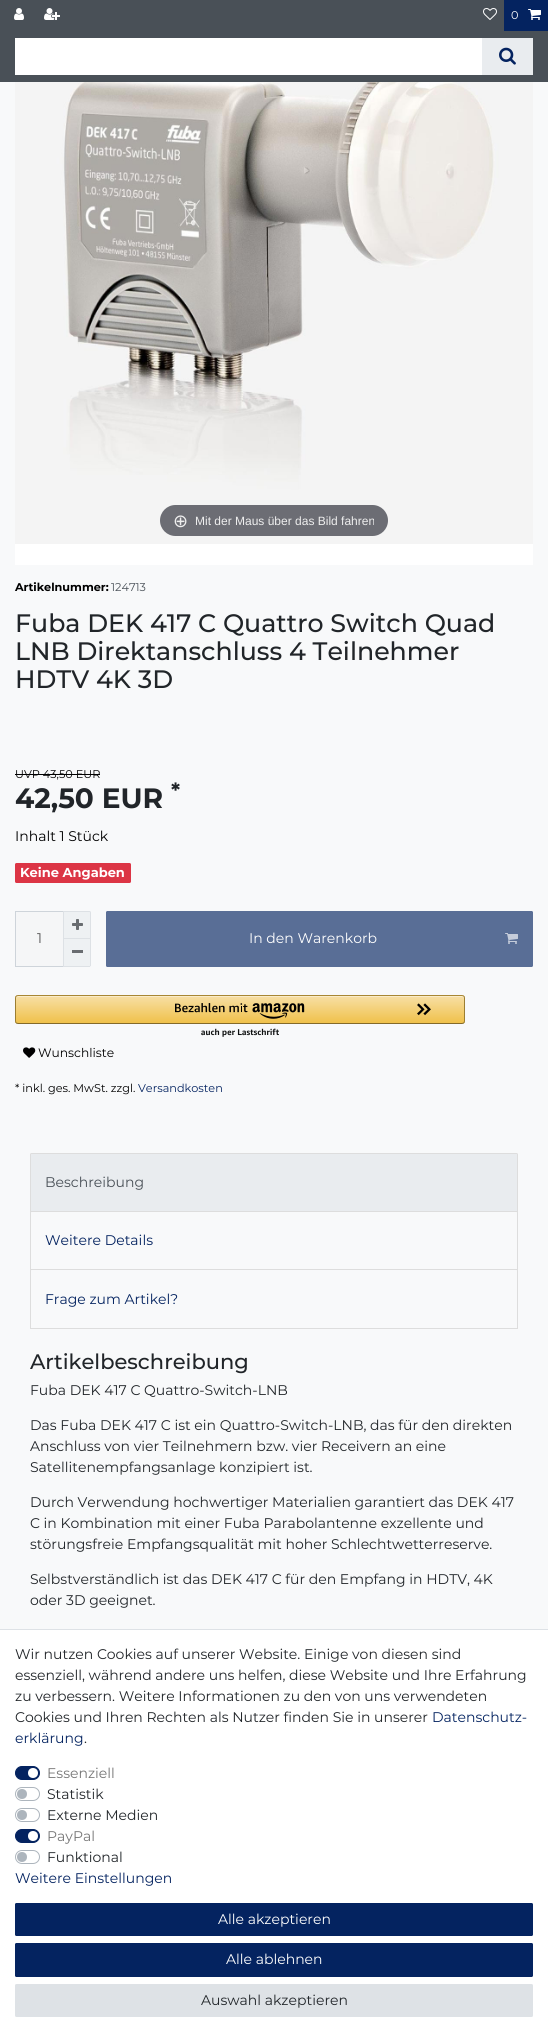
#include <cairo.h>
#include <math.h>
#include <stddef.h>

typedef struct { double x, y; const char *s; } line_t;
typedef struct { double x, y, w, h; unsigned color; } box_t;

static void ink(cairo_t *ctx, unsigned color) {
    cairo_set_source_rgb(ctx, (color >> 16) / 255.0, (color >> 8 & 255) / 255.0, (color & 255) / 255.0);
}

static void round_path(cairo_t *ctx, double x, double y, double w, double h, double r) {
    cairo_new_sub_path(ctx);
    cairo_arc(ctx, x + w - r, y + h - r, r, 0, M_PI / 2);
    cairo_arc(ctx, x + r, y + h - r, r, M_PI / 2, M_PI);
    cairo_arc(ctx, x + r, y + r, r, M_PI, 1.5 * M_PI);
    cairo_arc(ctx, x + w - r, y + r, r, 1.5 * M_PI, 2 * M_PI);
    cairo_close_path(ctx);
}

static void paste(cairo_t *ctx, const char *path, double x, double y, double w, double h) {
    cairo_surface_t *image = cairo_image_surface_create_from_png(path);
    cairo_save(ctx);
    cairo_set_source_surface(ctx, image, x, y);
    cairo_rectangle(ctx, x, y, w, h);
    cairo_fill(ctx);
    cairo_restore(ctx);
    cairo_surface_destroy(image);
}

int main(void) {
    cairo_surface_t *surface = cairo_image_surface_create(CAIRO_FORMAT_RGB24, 548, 2038);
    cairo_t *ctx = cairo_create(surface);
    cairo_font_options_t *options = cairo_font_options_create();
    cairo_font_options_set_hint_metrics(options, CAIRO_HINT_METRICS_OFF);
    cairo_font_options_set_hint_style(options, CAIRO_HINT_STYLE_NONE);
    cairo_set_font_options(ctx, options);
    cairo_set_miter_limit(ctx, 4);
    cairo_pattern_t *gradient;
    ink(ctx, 0xF8F9FA);
    cairo_paint(ctx);
    ink(ctx, 0x495057);
    cairo_rectangle(ctx, 0, 0, 548, 82);
    cairo_fill(ctx);
    paste(ctx, "media/1.png", 14, 8, 10, 12);
    paste(ctx, "media/2.png", 44, 8, 16, 12);
    paste(ctx, "media/3.png", 483, 8, 14, 12);
    ink(ctx, 0x042360);
    cairo_rectangle(ctx, 504, 0, 44, 31);
    cairo_fill(ctx);
    cairo_select_font_face(ctx, "Montserrat", CAIRO_FONT_SLANT_NORMAL, CAIRO_FONT_WEIGHT_NORMAL);
    cairo_set_font_size(ctx, 11.25);
    ink(ctx, 0xFFFFFF);
    cairo_move_to(ctx, 511, 19);
    cairo_show_text(ctx, "0");
    paste(ctx, "media/4.png", 528, 9, 13, 11);
    cairo_rectangle(ctx, 15, 38, 467, 37);
    cairo_fill(ctx);
    ink(ctx, 0xE9ECEF);
    cairo_rectangle(ctx, 482, 38, 51, 37);
    cairo_fill(ctx);
    paste(ctx, "media/5.png", 499, 47, 17, 18);
    ink(ctx, 0xFFFFFF);
    cairo_rectangle(ctx, 15, 544, 518, 21);
    cairo_fill(ctx);
    paste(ctx, "media/6.png", 15, 82, 518, 462);
    ink(ctx, 0x6C6D74);
    round_path(ctx, 160, 505, 228, 31, 15.5);
    cairo_fill(ctx);
    cairo_select_font_face(ctx, "DejaVu Sans", CAIRO_FONT_SLANT_NORMAL, CAIRO_FONT_WEIGHT_NORMAL);
    cairo_set_font_size(ctx, 18);
    ink(ctx, 0xEEEEEE);
    cairo_move_to(ctx, 173, 527);
    cairo_show_text(ctx, "⊕");
    cairo_select_font_face(ctx, "Liberation Sans", CAIRO_FONT_SLANT_NORMAL, CAIRO_FONT_WEIGHT_NORMAL);
    cairo_set_font_size(ctx, 12);
    cairo_move_to(ctx, 195, 525);
    cairo_show_text(ctx, "Mit der Maus über das Bild fahren");
    cairo_select_font_face(ctx, "Montserrat", CAIRO_FONT_SLANT_NORMAL, CAIRO_FONT_WEIGHT_BOLD);
    cairo_set_font_size(ctx, 11.25);
    ink(ctx, 0x000000);
    cairo_move_to(ctx, 15, 591);
    cairo_show_text(ctx, "Artikelnummer:");
    cairo_select_font_face(ctx, "Montserrat", CAIRO_FONT_SLANT_NORMAL, CAIRO_FONT_WEIGHT_NORMAL);
    ink(ctx, 0x495057);
    cairo_move_to(ctx, 111, 591);
    cairo_show_text(ctx, "124713");
    cairo_select_font_face(ctx, "Montserrat Medium", CAIRO_FONT_SLANT_NORMAL, CAIRO_FONT_WEIGHT_NORMAL);
    cairo_set_font_size(ctx, 25.25);
    ink(ctx, 0x212529);
    {
        static const line_t items[] = {
            {15, 632, "Fuba DEK 417 C Quattro Switch Quad"},
            {15, 660, "LNB Direktanschluss 4 Teilnehmer"},
            {15, 688, "HDTV 4K 3D"},
        };
        for (size_t i = 0; i < sizeof items / sizeof *items; i++) {
            cairo_move_to(ctx, items[i].x, items[i].y);
            cairo_show_text(ctx, items[i].s);
        }
    }
    cairo_select_font_face(ctx, "Montserrat", CAIRO_FONT_SLANT_NORMAL, CAIRO_FONT_WEIGHT_NORMAL);
    cairo_set_font_size(ctx, 11.25);
    ink(ctx, 0x000000);
    cairo_move_to(ctx, 15, 778);
    cairo_show_text(ctx, "UVP 43,50 EUR");
    cairo_rectangle(ctx, 15, 774, 85, 1);
    cairo_fill(ctx);
    cairo_select_font_face(ctx, "Montserrat", CAIRO_FONT_SLANT_NORMAL, CAIRO_FONT_WEIGHT_BOLD);
    cairo_set_font_size(ctx, 21);
    ink(ctx, 0x212529);
    cairo_move_to(ctx, 171, 798);
    cairo_show_text(ctx, "*");
    cairo_set_font_size(ctx, 28);
    cairo_move_to(ctx, 15, 808);
    cairo_show_text(ctx, "42,50 EUR");
    cairo_select_font_face(ctx, "Montserrat", CAIRO_FONT_SLANT_NORMAL, CAIRO_FONT_WEIGHT_NORMAL);
    cairo_set_font_size(ctx, 14);
    ink(ctx, 0x000000);
    cairo_move_to(ctx, 15, 841);
    cairo_show_text(ctx, "Inhalt 1 Stück");
    ink(ctx, 0xDC3545);
    round_path(ctx, 15, 863, 116, 20, 1.5);
    cairo_fill(ctx);
    cairo_select_font_face(ctx, "Montserrat", CAIRO_FONT_SLANT_NORMAL, CAIRO_FONT_WEIGHT_BOLD);
    cairo_set_font_size(ctx, 13);
    ink(ctx, 0xFFFFFF);
    cairo_move_to(ctx, 20, 877);
    cairo_show_text(ctx, "Keine Angaben");
    {
        static const box_t items[] = {
            {16, 912, 47, 54, 0xF5F6F7},
            {15, 911, 48, 1, 0xCED4DA},
            {15, 966, 48, 1, 0xCED4DA},
            {15, 911, 1, 56, 0xCED4DA},
        };
        for (size_t i = 0; i < sizeof items / sizeof *items; i++) {
            ink(ctx, items[i].color);
            cairo_rectangle(ctx, items[i].x, items[i].y, items[i].w, items[i].h);
            cairo_fill(ctx);
        }
    }
    cairo_select_font_face(ctx, "Montserrat", CAIRO_FONT_SLANT_NORMAL, CAIRO_FONT_WEIGHT_NORMAL);
    cairo_set_font_size(ctx, 14);
    ink(ctx, 0x545454);
    cairo_move_to(ctx, 37, 943);
    cairo_show_text(ctx, "1");
    ink(ctx, 0xEEF1F3);
    cairo_new_path(ctx);
    cairo_move_to(ctx, 63.5, 911.5);
    cairo_line_to(ctx, 89.5, 911.5);
    cairo_curve_to(ctx, 90, 911.5, 90.5, 912, 90.5, 912.5);
    cairo_line_to(ctx, 90.5, 938.5);
    cairo_line_to(ctx, 63.5, 938.5);
    cairo_close_path(ctx);
    cairo_fill_preserve(ctx);
    ink(ctx, 0xDDE1E5);
    cairo_set_line_width(ctx, 1);
    cairo_stroke(ctx);
    paste(ctx, "media/7.png", 72, 919, 11, 11);
    ink(ctx, 0xEEF1F3);
    cairo_new_path(ctx);
    cairo_move_to(ctx, 63, 939);
    cairo_line_to(ctx, 91, 939);
    cairo_line_to(ctx, 91, 965.5);
    cairo_curve_to(ctx, 91, 966.5, 90.5, 967, 89.5, 967);
    cairo_line_to(ctx, 63, 967);
    cairo_close_path(ctx);
    cairo_fill(ctx);
    {
        static const box_t items[] = {
            {90, 939, 1, 27, 0xDDE1E5},
            {63, 966, 27, 1, 0xDDE1E5},
            {63, 939, 1, 28, 0xDDE1E5},
            {72, 950, 11, 3, 0x696C70},
        };
        for (size_t i = 0; i < sizeof items / sizeof *items; i++) {
            ink(ctx, items[i].color);
            cairo_rectangle(ctx, items[i].x, items[i].y, items[i].w, items[i].h);
            cairo_fill(ctx);
        }
    }
    ink(ctx, 0x596E96);
    round_path(ctx, 106.5, 911.5, 426, 55, 1);
    cairo_fill_preserve(ctx);
    cairo_stroke(ctx);
    ink(ctx, 0xFFFFFF);
    cairo_move_to(ctx, 249, 943);
    cairo_show_text(ctx, "In den Warenkorb");
    paste(ctx, "media/8.png", 505, 933, 13, 11);
    cairo_save(ctx);
    round_path(ctx, 15, 995, 450, 29, 3);
    cairo_clip(ctx);
    gradient = cairo_pattern_create_linear(240, 996, 240, 1023);
    cairo_pattern_add_color_stop_rgba(gradient, 0, 0.969, 0.875, 0.647, 1);
    cairo_pattern_add_color_stop_rgba(gradient, 1, 0.941, 0.757, 0.294, 1);
    cairo_set_source(ctx, gradient);
    cairo_pattern_destroy(gradient);
    cairo_rectangle(ctx, 15, 996, 450, 27);
    cairo_fill(ctx);
    cairo_restore(ctx);
    cairo_set_source_rgba(ctx, 1, 1, 1, 0.4);
    cairo_new_path(ctx);
    cairo_move_to(ctx, 18, 997);
    cairo_line_to(ctx, 462, 997);
    cairo_curve_to(ctx, 463, 997, 464, 998, 464, 999);
    cairo_curve_to(ctx, 464, 998, 464, 996, 462, 996);
    cairo_line_to(ctx, 18, 996);
    cairo_curve_to(ctx, 16, 996, 16, 998, 16, 999);
    cairo_curve_to(ctx, 16, 998, 17, 997, 18, 997);
    cairo_close_path(ctx);
    cairo_fill(ctx);
    cairo_new_path(ctx);
    cairo_move_to(ctx, 16, 996);
    cairo_line_to(ctx, 18, 995.5);
    cairo_line_to(ctx, 462, 995.5);
    cairo_line_to(ctx, 464, 996);
    ink(ctx, 0xA88734);
    cairo_stroke(ctx);
    cairo_new_path(ctx);
    cairo_move_to(ctx, 464, 996);
    cairo_curve_to(ctx, 464, 996.5, 464.5, 997.5, 464.5, 998);
    cairo_line_to(ctx, 464.5, 1021);
    cairo_curve_to(ctx, 464.5, 1021.5, 464, 1022.5, 464, 1023);
    ink(ctx, 0x9C7E31);
    cairo_stroke(ctx);
    cairo_new_path(ctx);
    cairo_move_to(ctx, 464, 1023);
    cairo_line_to(ctx, 462, 1023.5);
    cairo_line_to(ctx, 18, 1023.5);
    cairo_line_to(ctx, 16, 1023);
    ink(ctx, 0x846A29);
    cairo_stroke(ctx);
    cairo_new_path(ctx);
    cairo_move_to(ctx, 16, 1023);
    cairo_curve_to(ctx, 16, 1022.5, 15.5, 1021.5, 15.5, 1021);
    cairo_line_to(ctx, 15.5, 998);
    cairo_curve_to(ctx, 15.5, 997.5, 16, 996.5, 16, 996);
    ink(ctx, 0x9C7E31);
    cairo_stroke(ctx);
    paste(ctx, "media/9.png", 175, 1003, 130, 16);
    paste(ctx, "media/10.png", 417, 1003, 14, 13);
    paste(ctx, "media/11.png", 201, 1028, 78, 9);
    paste(ctx, "media/12.png", 23, 1047, 13, 11);
    cairo_set_font_size(ctx, 12.25);
    ink(ctx, 0x000000);
    cairo_move_to(ctx, 38, 1057);
    cairo_show_text(ctx, "Wunschliste");
    cairo_set_font_size(ctx, 11.25);
    cairo_move_to(ctx, 15, 1092);
    cairo_show_text(ctx, "* inkl. ges. MwSt. zzgl.");
    ink(ctx, 0x042360);
    cairo_move_to(ctx, 138, 1092);
    cairo_show_text(ctx, "Versandkosten");
    ink(ctx, 0xE9ECEF);
    cairo_new_path(ctx);
    cairo_move_to(ctx, 31.5, 1153.5);
    cairo_line_to(ctx, 516.5, 1153.5);
    cairo_curve_to(ctx, 517, 1153.5, 517.5, 1154, 517.5, 1154.5);
    cairo_line_to(ctx, 517.5, 1211.5);
    cairo_line_to(ctx, 30.5, 1211.5);
    cairo_line_to(ctx, 30.5, 1154.5);
    cairo_curve_to(ctx, 30.5, 1154, 31, 1153.5, 31.5, 1153.5);
    cairo_close_path(ctx);
    cairo_fill_preserve(ctx);
    ink(ctx, 0xDDDDDD);
    cairo_stroke(ctx);
    cairo_set_font_size(ctx, 14);
    ink(ctx, 0x495057);
    cairo_move_to(ctx, 45, 1187);
    cairo_show_text(ctx, "Beschreibung");
    cairo_new_path(ctx);
    cairo_move_to(ctx, 31.5, 1211.5);
    cairo_line_to(ctx, 516.5, 1211.5);
    cairo_curve_to(ctx, 517, 1211.5, 517.5, 1212, 517.5, 1212.5);
    cairo_line_to(ctx, 517.5, 1269.5);
    cairo_line_to(ctx, 30.5, 1269.5);
    cairo_line_to(ctx, 30.5, 1212.5);
    cairo_curve_to(ctx, 30.5, 1212, 31, 1211.5, 31.5, 1211.5);
    cairo_close_path(ctx);
    ink(ctx, 0xDDDDDD);
    cairo_stroke(ctx);
    ink(ctx, 0x042360);
    cairo_move_to(ctx, 45, 1245);
    cairo_show_text(ctx, "Weitere Details");
    cairo_new_path(ctx);
    cairo_move_to(ctx, 31.5, 1269.5);
    cairo_line_to(ctx, 516.5, 1269.5);
    cairo_curve_to(ctx, 517, 1269.5, 517.5, 1270, 517.5, 1270.5);
    cairo_line_to(ctx, 517.5, 1328.5);
    cairo_line_to(ctx, 30.5, 1328.5);
    cairo_line_to(ctx, 30.5, 1270.5);
    cairo_curve_to(ctx, 30.5, 1270, 31, 1269.5, 31.5, 1269.5);
    cairo_close_path(ctx);
    ink(ctx, 0xDDDDDD);
    cairo_stroke(ctx);
    ink(ctx, 0x042360);
    cairo_move_to(ctx, 45, 1304);
    cairo_show_text(ctx, "Frage zum Artikel?");
    cairo_select_font_face(ctx, "Montserrat Medium", CAIRO_FONT_SLANT_NORMAL, CAIRO_FONT_WEIGHT_NORMAL);
    cairo_set_font_size(ctx, 21);
    ink(ctx, 0x212529);
    cairo_move_to(ctx, 30, 1369);
    cairo_show_text(ctx, "Artikelbeschreibung");
    cairo_select_font_face(ctx, "Montserrat", CAIRO_FONT_SLANT_NORMAL, CAIRO_FONT_WEIGHT_NORMAL);
    cairo_set_font_size(ctx, 14);
    {
        static const line_t items[] = {
            {30, 1395, "Fuba DEK 417 C Quattro-Switch-LNB"},
            {30, 1430, "Das Fuba DEK 417 C ist ein Quattro-Switch-LNB, das für den direkten"},
            {30, 1451, "Anschluss von vier Teilnehmern bzw. vier Receivern an eine"},
            {30, 1472, "Satellitenempfangsanlage konzipiert ist."},
            {30, 1507, "Durch Verwendung hochwertiger Materialien garantiert das DEK 417"},
            {30, 1528, "C in Kombination mit einer Fuba Parabolantenne exzellente und"},
            {30, 1549, "störungsfreie Empfangsqualität mit hoher Schlechtwetterreserve."},
            {30, 1584, "Selbstverständlich ist das DEK 417 C für den Empfang in HDTV, 4K"},
            {30, 1605, "oder 3D geeignet."},
        };
        for (size_t i = 0; i < sizeof items / sizeof *items; i++) {
            cairo_move_to(ctx, items[i].x, items[i].y);
            cairo_show_text(ctx, items[i].s);
        }
    }
    ink(ctx, 0xFFFFFF);
    cairo_rectangle(ctx, 0, 1630, 548, 408);
    cairo_fill(ctx);
    ink(ctx, 0xDEE2E6);
    cairo_rectangle(ctx, 0, 1629, 548, 1);
    cairo_fill(ctx);
    ink(ctx, 0x212529);
    {
        static const line_t items[] = {
            {15, 1659, "Wir nutzen Cookies auf unserer Website. Einige von diesen sind"},
            {15, 1680, "essenziell, während andere uns helfen, diese Website und Ihre Erfahrung"},
            {15, 1701, "zu verbessern. Weitere Informationen zu den von uns verwendeten"},
            {15, 1722, "Cookies und Ihren Rechten als Nutzer finden Sie in unserer"},
        };
        for (size_t i = 0; i < sizeof items / sizeof *items; i++) {
            cairo_move_to(ctx, items[i].x, items[i].y);
            cairo_show_text(ctx, items[i].s);
        }
    }
    ink(ctx, 0x042360);
    cairo_move_to(ctx, 432, 1722);
    cairo_show_text(ctx, "Datenschutz-");
    cairo_move_to(ctx, 15, 1743);
    cairo_show_text(ctx, "erklärung");
    ink(ctx, 0x212529);
    cairo_move_to(ctx, 84, 1743);
    cairo_show_text(ctx, ".");
    ink(ctx, 0x042360);
    round_path(ctx, 15.5, 1766.5, 24, 13, 6.5);
    cairo_fill_preserve(ctx);
    cairo_stroke(ctx);
    ink(ctx, 0x767676);
    cairo_move_to(ctx, 47, 1778);
    cairo_show_text(ctx, "Essenziell");
    ink(ctx, 0xFFFFFF);
    cairo_new_path(ctx);
    cairo_arc(ctx, 33, 1773, 5, 0, 2 * M_PI);
    cairo_fill(ctx);
    round_path(ctx, 15.5, 1787.5, 24, 13, 6.5);
    ink(ctx, 0xADB5BD);
    cairo_stroke(ctx);
    ink(ctx, 0x212529);
    cairo_move_to(ctx, 47, 1799);
    cairo_show_text(ctx, "Statistik");
    ink(ctx, 0xADB5BD);
    cairo_new_path(ctx);
    cairo_arc(ctx, 22, 1794, 5, 0, 2 * M_PI);
    cairo_fill(ctx);
    round_path(ctx, 15.5, 1808.5, 24, 13, 6.5);
    cairo_stroke(ctx);
    ink(ctx, 0x212529);
    cairo_move_to(ctx, 47, 1820);
    cairo_show_text(ctx, "Externe Medien");
    ink(ctx, 0xADB5BD);
    cairo_new_path(ctx);
    cairo_arc(ctx, 22, 1815, 5, 0, 2 * M_PI);
    cairo_fill(ctx);
    ink(ctx, 0x042360);
    round_path(ctx, 15.5, 1829.5, 24, 13, 6.5);
    cairo_fill_preserve(ctx);
    cairo_stroke(ctx);
    ink(ctx, 0x767676);
    cairo_move_to(ctx, 47, 1841);
    cairo_show_text(ctx, "PayPal");
    ink(ctx, 0xFFFFFF);
    cairo_new_path(ctx);
    cairo_arc(ctx, 33, 1836, 5, 0, 2 * M_PI);
    cairo_fill(ctx);
    round_path(ctx, 15.5, 1850.5, 24, 13, 6.5);
    ink(ctx, 0xADB5BD);
    cairo_stroke(ctx);
    ink(ctx, 0x212529);
    cairo_move_to(ctx, 47, 1862);
    cairo_show_text(ctx, "Funktional");
    ink(ctx, 0xADB5BD);
    cairo_new_path(ctx);
    cairo_arc(ctx, 22, 1857, 5, 0, 2 * M_PI);
    cairo_fill(ctx);
    ink(ctx, 0x042360);
    cairo_move_to(ctx, 15, 1883);
    cairo_show_text(ctx, "Weitere Einstellungen");
    round_path(ctx, 15.5, 1903.5, 517, 32, 1);
    cairo_fill_preserve(ctx);
    cairo_stroke(ctx);
    ink(ctx, 0xFFFFFF);
    cairo_move_to(ctx, 218, 1924);
    cairo_show_text(ctx, "Alle akzeptieren");
    ink(ctx, 0x042360);
    round_path(ctx, 15.5, 1943.5, 517, 33, 1);
    cairo_fill_preserve(ctx);
    cairo_stroke(ctx);
    ink(ctx, 0xFFFFFF);
    cairo_move_to(ctx, 226, 1964);
    cairo_show_text(ctx, "Alle ablehnen");
    ink(ctx, 0xDEE2E6);
    round_path(ctx, 15.5, 1984.5, 517, 32, 1);
    cairo_fill_preserve(ctx);
    cairo_stroke(ctx);
    ink(ctx, 0x212529);
    cairo_move_to(ctx, 201, 2005);
    cairo_show_text(ctx, "Auswahl akzeptieren");
    cairo_surface_write_to_png(surface, "image.png");
    cairo_font_options_destroy(options);
    cairo_destroy(ctx);
    cairo_surface_destroy(surface);
    return 0;
}
